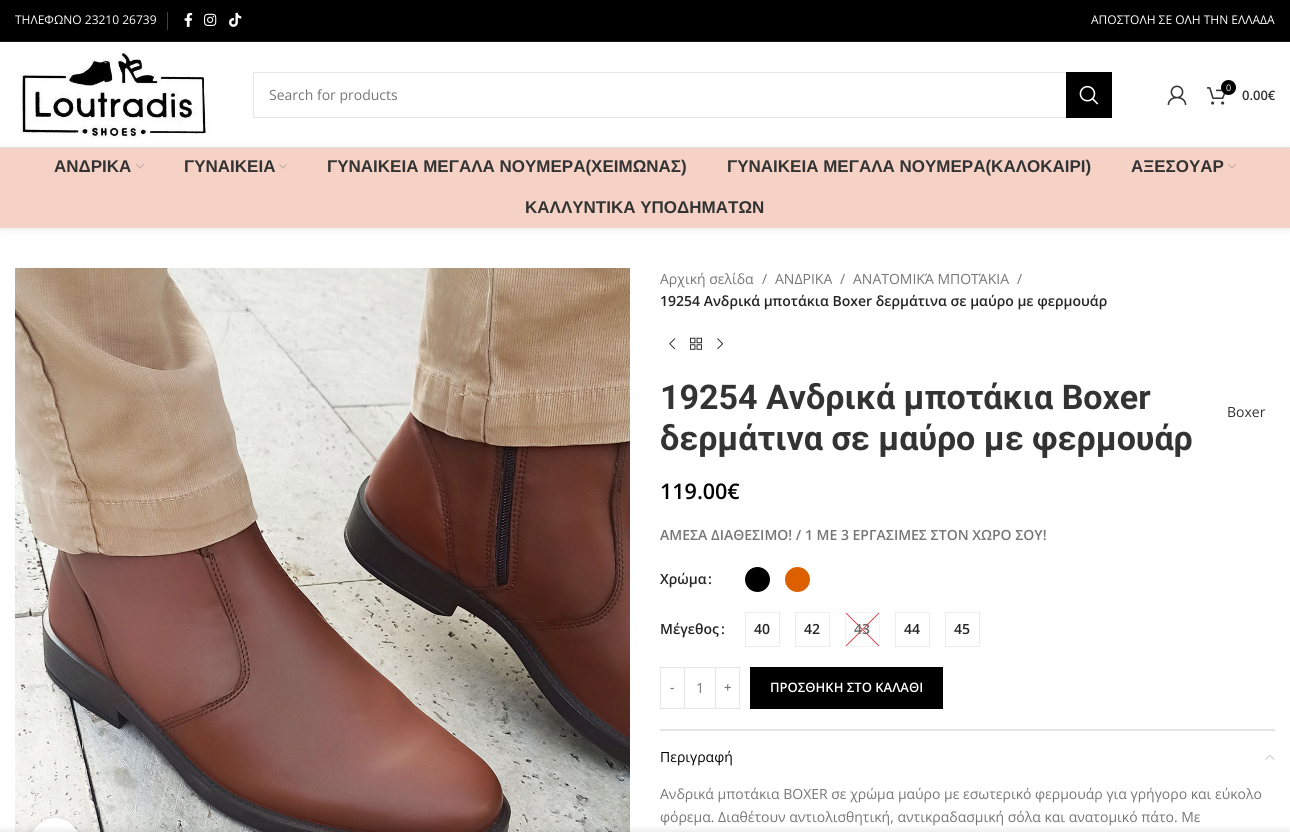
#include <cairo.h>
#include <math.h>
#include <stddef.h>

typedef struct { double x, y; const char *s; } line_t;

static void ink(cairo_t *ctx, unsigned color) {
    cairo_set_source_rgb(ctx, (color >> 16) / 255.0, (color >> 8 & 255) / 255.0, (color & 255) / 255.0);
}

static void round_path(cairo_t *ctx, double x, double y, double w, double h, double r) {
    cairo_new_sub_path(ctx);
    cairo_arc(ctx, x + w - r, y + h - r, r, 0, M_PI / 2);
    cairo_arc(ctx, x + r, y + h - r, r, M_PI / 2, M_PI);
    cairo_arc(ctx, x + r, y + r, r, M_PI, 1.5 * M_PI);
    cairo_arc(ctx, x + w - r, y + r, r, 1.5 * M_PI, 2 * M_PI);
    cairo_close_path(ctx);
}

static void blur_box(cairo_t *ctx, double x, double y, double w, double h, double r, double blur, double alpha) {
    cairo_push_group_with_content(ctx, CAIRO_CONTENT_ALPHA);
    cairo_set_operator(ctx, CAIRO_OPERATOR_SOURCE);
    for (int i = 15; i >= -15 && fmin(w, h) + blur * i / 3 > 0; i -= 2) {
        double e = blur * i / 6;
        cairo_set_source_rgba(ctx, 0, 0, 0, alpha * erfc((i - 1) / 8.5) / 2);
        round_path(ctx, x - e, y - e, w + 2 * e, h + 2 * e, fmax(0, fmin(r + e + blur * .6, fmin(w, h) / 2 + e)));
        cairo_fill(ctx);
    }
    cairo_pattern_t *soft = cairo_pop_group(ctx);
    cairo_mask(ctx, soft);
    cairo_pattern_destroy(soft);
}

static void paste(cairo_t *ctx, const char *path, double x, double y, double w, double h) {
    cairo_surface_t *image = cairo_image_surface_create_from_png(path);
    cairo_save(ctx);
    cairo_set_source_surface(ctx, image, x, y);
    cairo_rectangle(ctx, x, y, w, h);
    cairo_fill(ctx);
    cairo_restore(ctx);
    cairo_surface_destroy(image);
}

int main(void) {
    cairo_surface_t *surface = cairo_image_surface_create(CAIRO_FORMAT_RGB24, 1290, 832);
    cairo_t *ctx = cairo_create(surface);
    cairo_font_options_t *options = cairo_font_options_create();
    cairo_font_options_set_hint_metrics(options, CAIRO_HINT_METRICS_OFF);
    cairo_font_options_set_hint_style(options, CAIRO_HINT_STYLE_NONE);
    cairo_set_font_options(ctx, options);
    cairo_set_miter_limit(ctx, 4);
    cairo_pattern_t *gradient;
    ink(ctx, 0xFFFFFF);
    cairo_paint(ctx);
    ink(ctx, 0x000000);
    cairo_rectangle(ctx, 0, 0, 1290, 41);
    cairo_fill(ctx);
    ink(ctx, 0x1A1A18);
    cairo_rectangle(ctx, 0, 41, 1290, 1);
    cairo_fill(ctx);
    cairo_select_font_face(ctx, "Open Sans", CAIRO_FONT_SLANT_NORMAL, CAIRO_FONT_WEIGHT_NORMAL);
    cairo_set_font_size(ctx, 12);
    ink(ctx, 0xFFFFFF);
    cairo_move_to(ctx, 15, 24);
    cairo_show_text(ctx, "ΤΗΛΕΦΩΝΟ 23210 26739");
    ink(ctx, 0x404040);
    cairo_rectangle(ctx, 167, 12, 1, 18);
    cairo_fill(ctx);
    paste(ctx, "media/1.png", 184, 12, 9, 15);
    paste(ctx, "media/2.png", 204, 13, 13, 13);
    paste(ctx, "media/3.png", 229, 12, 13, 15);
    ink(ctx, 0xFFFFFF);
    cairo_move_to(ctx, 1091, 24);
    cairo_show_text(ctx, "ΑΠΟΣΤΟΛΗ ΣΕ ΟΛΗ ΤΗΝ ΕΛΛΑΔΑ");
    ink(ctx, 0xE8E8E8);
    cairo_rectangle(ctx, 0, 147, 1290, 1);
    cairo_fill(ctx);
    ink(ctx, 0x000000);
    blur_box(ctx, 0, 149, 1290, 80, 0, 4, 0.1);
    paste(ctx, "media/4.png", 20, 51, 189, 87);
    cairo_rectangle(ctx, 253.5, 72.5, 858, 45);
    ink(ctx, 0xE6E6E6);
    cairo_set_line_width(ctx, 1);
    cairo_stroke(ctx);
    cairo_set_font_size(ctx, 14);
    ink(ctx, 0x767676);
    cairo_move_to(ctx, 269, 100);
    cairo_show_text(ctx, "Search for products");
    ink(ctx, 0x000000);
    cairo_rectangle(ctx, 1066, 72, 46, 46);
    cairo_fill(ctx);
    paste(ctx, "media/5.png", 1079, 85, 20, 20);
    paste(ctx, "media/6.png", 1167, 85, 20, 20);
    paste(ctx, "media/7.png", 1207, 87, 19, 18);
    cairo_arc(ctx, 1228.5, 87.5, 7.5, 0, 2 * M_PI);
    cairo_fill(ctx);
    cairo_set_font_size(ctx, 9);
    ink(ctx, 0xFFFFFF);
    cairo_move_to(ctx, 1226, 91);
    cairo_show_text(ctx, "0");
    cairo_select_font_face(ctx, "Open Sans SemiBold", CAIRO_FONT_SLANT_NORMAL, CAIRO_FONT_WEIGHT_NORMAL);
    cairo_set_font_size(ctx, 13);
    ink(ctx, 0x333333);
    cairo_move_to(ctx, 1242, 100);
    cairo_show_text(ctx, "0.00€");
    ink(ctx, 0xF6D2C6);
    cairo_rectangle(ctx, 0, 148, 1290, 80);
    cairo_fill(ctx);
    cairo_select_font_face(ctx, "Liberation Sans", CAIRO_FONT_SLANT_NORMAL, CAIRO_FONT_WEIGHT_BOLD);
    cairo_set_font_size(ctx, 17);
    ink(ctx, 0x333333);
    cairo_move_to(ctx, 54, 172);
    cairo_show_text(ctx, "ΑΝΔΡΙΚΑ");
    paste(ctx, "media/8.png", 136, 164, 8, 5);
    cairo_move_to(ctx, 184, 172);
    cairo_show_text(ctx, "ΓΥΝΑΙΚΕΙΑ");
    paste(ctx, "media/8.png", 279, 164, 8, 5);
    {
        static const line_t items[] = {
            {327, 172, "ΓΥΝΑΙΚΕΙΑ ΜΕΓΑΛΑ ΝΟΥΜΕΡΑ(ΧΕΙΜΩΝΑΣ)"},
            {727, 172, "ΓΥΝΑΙΚΕΙΑ ΜΕΓΑΛΑ ΝΟΥΜΕΡΑ(ΚΑΛΟΚΑΙΡΙ)"},
            {1131, 172, "ΑΞΕΣΟΥΑΡ"},
        };
        for (size_t i = 0; i < sizeof items / sizeof *items; i++) {
            cairo_move_to(ctx, items[i].x, items[i].y);
            cairo_show_text(ctx, items[i].s);
        }
    }
    paste(ctx, "media/8.png", 1228, 164, 8, 5);
    cairo_move_to(ctx, 525, 213);
    cairo_show_text(ctx, "ΚΑΛΛΥΝΤΙΚΑ ΥΠΟΔΗΜΑΤΩΝ");
    paste(ctx, "media/9.png", 15, 268, 615, 564);
    ink(ctx, 0x000000);
    blur_box(ctx, 30, 818, 50, 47, 25, 2.5, 0.08);
    ink(ctx, 0xFFFFFF);
    round_path(ctx, 30, 818, 50, 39, 25);
    cairo_fill(ctx);
    cairo_select_font_face(ctx, "Open Sans", CAIRO_FONT_SLANT_NORMAL, CAIRO_FONT_WEIGHT_NORMAL);
    cairo_set_font_size(ctx, 14);
    ink(ctx, 0x767676);
    {
        static const line_t items[] = {
            {660, 284, "Αρχική σελίδα"},
            {762, 284, "/"},
            {775, 284, "ΑΝΔΡΙΚΑ"},
            {840, 284, "/"},
            {853, 284, "ΑΝΑΤΟΜΙΚΆ ΜΠΟΤΆΚΙΑ"},
            {1017, 284, "/"},
        };
        for (size_t i = 0; i < sizeof items / sizeof *items; i++) {
            cairo_move_to(ctx, items[i].x, items[i].y);
            cairo_show_text(ctx, items[i].s);
        }
    }
    cairo_select_font_face(ctx, "Open Sans SemiBold", CAIRO_FONT_SLANT_NORMAL, CAIRO_FONT_WEIGHT_NORMAL);
    ink(ctx, 0x242424);
    cairo_move_to(ctx, 660, 306);
    cairo_show_text(ctx, "19254 Ανδρικά μποτάκια Boxer δερμάτινα σε μαύρο με φερμουάρ");
    paste(ctx, "media/10.png", 669, 338, 7, 12);
    paste(ctx, "media/11.png", 690, 337, 12, 13);
    paste(ctx, "media/12.png", 717, 338, 7, 12);
    cairo_select_font_face(ctx, "Roboto", CAIRO_FONT_SLANT_NORMAL, CAIRO_FONT_WEIGHT_BOLD);
    cairo_set_font_size(ctx, 34);
    ink(ctx, 0x333333);
    cairo_move_to(ctx, 660, 409);
    cairo_show_text(ctx, "19254 Ανδρικά μποτάκια Boxer");
    cairo_move_to(ctx, 660, 450);
    cairo_show_text(ctx, "δερμάτινα σε μαύρο με φερμουάρ");
    cairo_select_font_face(ctx, "Open Sans", CAIRO_FONT_SLANT_NORMAL, CAIRO_FONT_WEIGHT_NORMAL);
    cairo_set_font_size(ctx, 14);
    cairo_move_to(ctx, 1227, 417);
    cairo_show_text(ctx, "Boxer");
    cairo_select_font_face(ctx, "Open Sans SemiBold", CAIRO_FONT_SLANT_NORMAL, CAIRO_FONT_WEIGHT_NORMAL);
    cairo_set_font_size(ctx, 21.5);
    ink(ctx, 0x000000);
    cairo_move_to(ctx, 660, 499);
    cairo_show_text(ctx, "119.00€");
    cairo_set_font_size(ctx, 14);
    ink(ctx, 0x767676);
    cairo_move_to(ctx, 660, 540);
    cairo_show_text(ctx, "ΑΜΕΣΑ ΔΙΑΘΕΣΙΜΟ! / 1 ΜΕ 3 ΕΡΓΑΣΙΜΕΣ ΣΤΟΝ ΧΩΡΟ ΣΟΥ!");
    ink(ctx, 0x242424);
    cairo_move_to(ctx, 660, 584);
    cairo_show_text(ctx, "Χρώμα");
    cairo_move_to(ctx, 708, 584);
    cairo_show_text(ctx, ":");
    ink(ctx, 0x000000);
    cairo_new_path(ctx);
    cairo_arc(ctx, 757.5, 579.5, 12.5, 0, 2 * M_PI);
    cairo_fill(ctx);
    ink(ctx, 0xDD6000);
    cairo_arc(ctx, 797.5, 579.5, 12.5, 0, 2 * M_PI);
    cairo_fill(ctx);
    ink(ctx, 0x242424);
    cairo_move_to(ctx, 660, 634);
    cairo_show_text(ctx, "Μέγεθος");
    cairo_move_to(ctx, 721, 634);
    cairo_show_text(ctx, ":");
    cairo_rectangle(ctx, 745.5, 612.5, 34, 34);
    ink(ctx, 0xECECEC);
    cairo_stroke(ctx);
    ink(ctx, 0x242424);
    cairo_move_to(ctx, 754, 634);
    cairo_show_text(ctx, "40");
    cairo_rectangle(ctx, 795.5, 612.5, 34, 34);
    ink(ctx, 0xECECEC);
    cairo_stroke(ctx);
    ink(ctx, 0x242424);
    cairo_move_to(ctx, 804, 634);
    cairo_show_text(ctx, "42");
    cairo_rectangle(ctx, 845.5, 612.5, 34, 34);
    ink(ctx, 0xF2F2F2);
    cairo_stroke(ctx);
    gradient = cairo_pattern_create_linear(879, 646, 846, 613);
    cairo_pattern_add_color_stop_rgba(gradient, 0.48, 0.867, 0.302, 0.341, 0);
    cairo_pattern_add_color_stop_rgba(gradient, 0.5, 0.867, 0.302, 0.341, 1);
    cairo_pattern_add_color_stop_rgba(gradient, 0.52, 0.867, 0.302, 0.341, 0);
    cairo_set_source(ctx, gradient);
    cairo_pattern_destroy(gradient);
    cairo_rectangle(ctx, 846, 613, 33, 33);
    cairo_fill(ctx);
    gradient = cairo_pattern_create_linear(846, 646, 879, 613);
    cairo_pattern_add_color_stop_rgba(gradient, 0.48, 0.867, 0.302, 0.341, 0);
    cairo_pattern_add_color_stop_rgba(gradient, 0.5, 0.867, 0.302, 0.341, 1);
    cairo_pattern_add_color_stop_rgba(gradient, 0.52, 0.867, 0.302, 0.341, 0);
    cairo_set_source(ctx, gradient);
    cairo_pattern_destroy(gradient);
    cairo_rectangle(ctx, 846, 613, 33, 33);
    cairo_fill(ctx);
    ink(ctx, 0x666666);
    cairo_move_to(ctx, 854, 634);
    cairo_show_text(ctx, "43");
    cairo_rectangle(ctx, 895.5, 612.5, 34, 34);
    ink(ctx, 0xECECEC);
    cairo_stroke(ctx);
    ink(ctx, 0x242424);
    cairo_move_to(ctx, 904, 634);
    cairo_show_text(ctx, "44");
    cairo_rectangle(ctx, 945.5, 612.5, 34, 34);
    ink(ctx, 0xECECEC);
    cairo_stroke(ctx);
    ink(ctx, 0x242424);
    cairo_move_to(ctx, 954, 634);
    cairo_show_text(ctx, "45");
    cairo_rectangle(ctx, 660.5, 667.5, 24, 41);
    ink(ctx, 0xE6E6E6);
    cairo_stroke(ctx);
    cairo_set_font_size(ctx, 13);
    ink(ctx, 0x767676);
    cairo_move_to(ctx, 670, 692);
    cairo_show_text(ctx, "-");
    ink(ctx, 0xE6E6E6);
    cairo_rectangle(ctx, 685, 667, 30, 1);
    cairo_fill(ctx);
    cairo_rectangle(ctx, 685, 708, 30, 1);
    cairo_fill(ctx);
    cairo_select_font_face(ctx, "Open Sans", CAIRO_FONT_SLANT_NORMAL, CAIRO_FONT_WEIGHT_NORMAL);
    cairo_set_font_size(ctx, 14);
    ink(ctx, 0x767676);
    cairo_move_to(ctx, 696, 693);
    cairo_show_text(ctx, "1");
    cairo_rectangle(ctx, 715.5, 667.5, 24, 41);
    ink(ctx, 0xE6E6E6);
    cairo_stroke(ctx);
    cairo_select_font_face(ctx, "Open Sans SemiBold", CAIRO_FONT_SLANT_NORMAL, CAIRO_FONT_WEIGHT_NORMAL);
    cairo_set_font_size(ctx, 13);
    ink(ctx, 0x767676);
    cairo_move_to(ctx, 724, 692);
    cairo_show_text(ctx, "+");
    ink(ctx, 0x000000);
    cairo_rectangle(ctx, 750, 667, 193, 42);
    cairo_fill(ctx);
    ink(ctx, 0xFFFFFF);
    cairo_move_to(ctx, 770, 692);
    cairo_show_text(ctx, "ΠΡΟΣΘΗΚΗ ΣΤΟ ΚΑΛΑΘΙ");
    ink(ctx, 0xE4E4E4);
    cairo_rectangle(ctx, 660, 729, 615, 2);
    cairo_fill(ctx);
    cairo_select_font_face(ctx, "Open Sans", CAIRO_FONT_SLANT_NORMAL, CAIRO_FONT_WEIGHT_NORMAL);
    cairo_set_font_size(ctx, 14);
    ink(ctx, 0x000000);
    cairo_move_to(ctx, 660, 762);
    cairo_show_text(ctx, "Περιγραφή");
    paste(ctx, "media/13.png", 1265, 755, 10, 5);
    ink(ctx, 0x767676);
    cairo_move_to(ctx, 660, 799);
    cairo_show_text(ctx, "Ανδρικά μποτάκια BOXER σε χρώμα μαύρο με εσωτερικό φερμουάρ για γρήγορο και εύκολο");
    cairo_move_to(ctx, 660, 822);
    cairo_show_text(ctx, "φόρεμα. Διαθέτουν αντιολισθητική, αντικραδασμική σόλα και ανατομικό πάτο. Με");
    ink(ctx, 0x000000);
    blur_box(ctx, 0, 832, 1290, 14, 0, 4.5, 0.14);
    cairo_surface_write_to_png(surface, "image.png");
    cairo_font_options_destroy(options);
    cairo_destroy(ctx);
    cairo_surface_destroy(surface);
    return 0;
}
